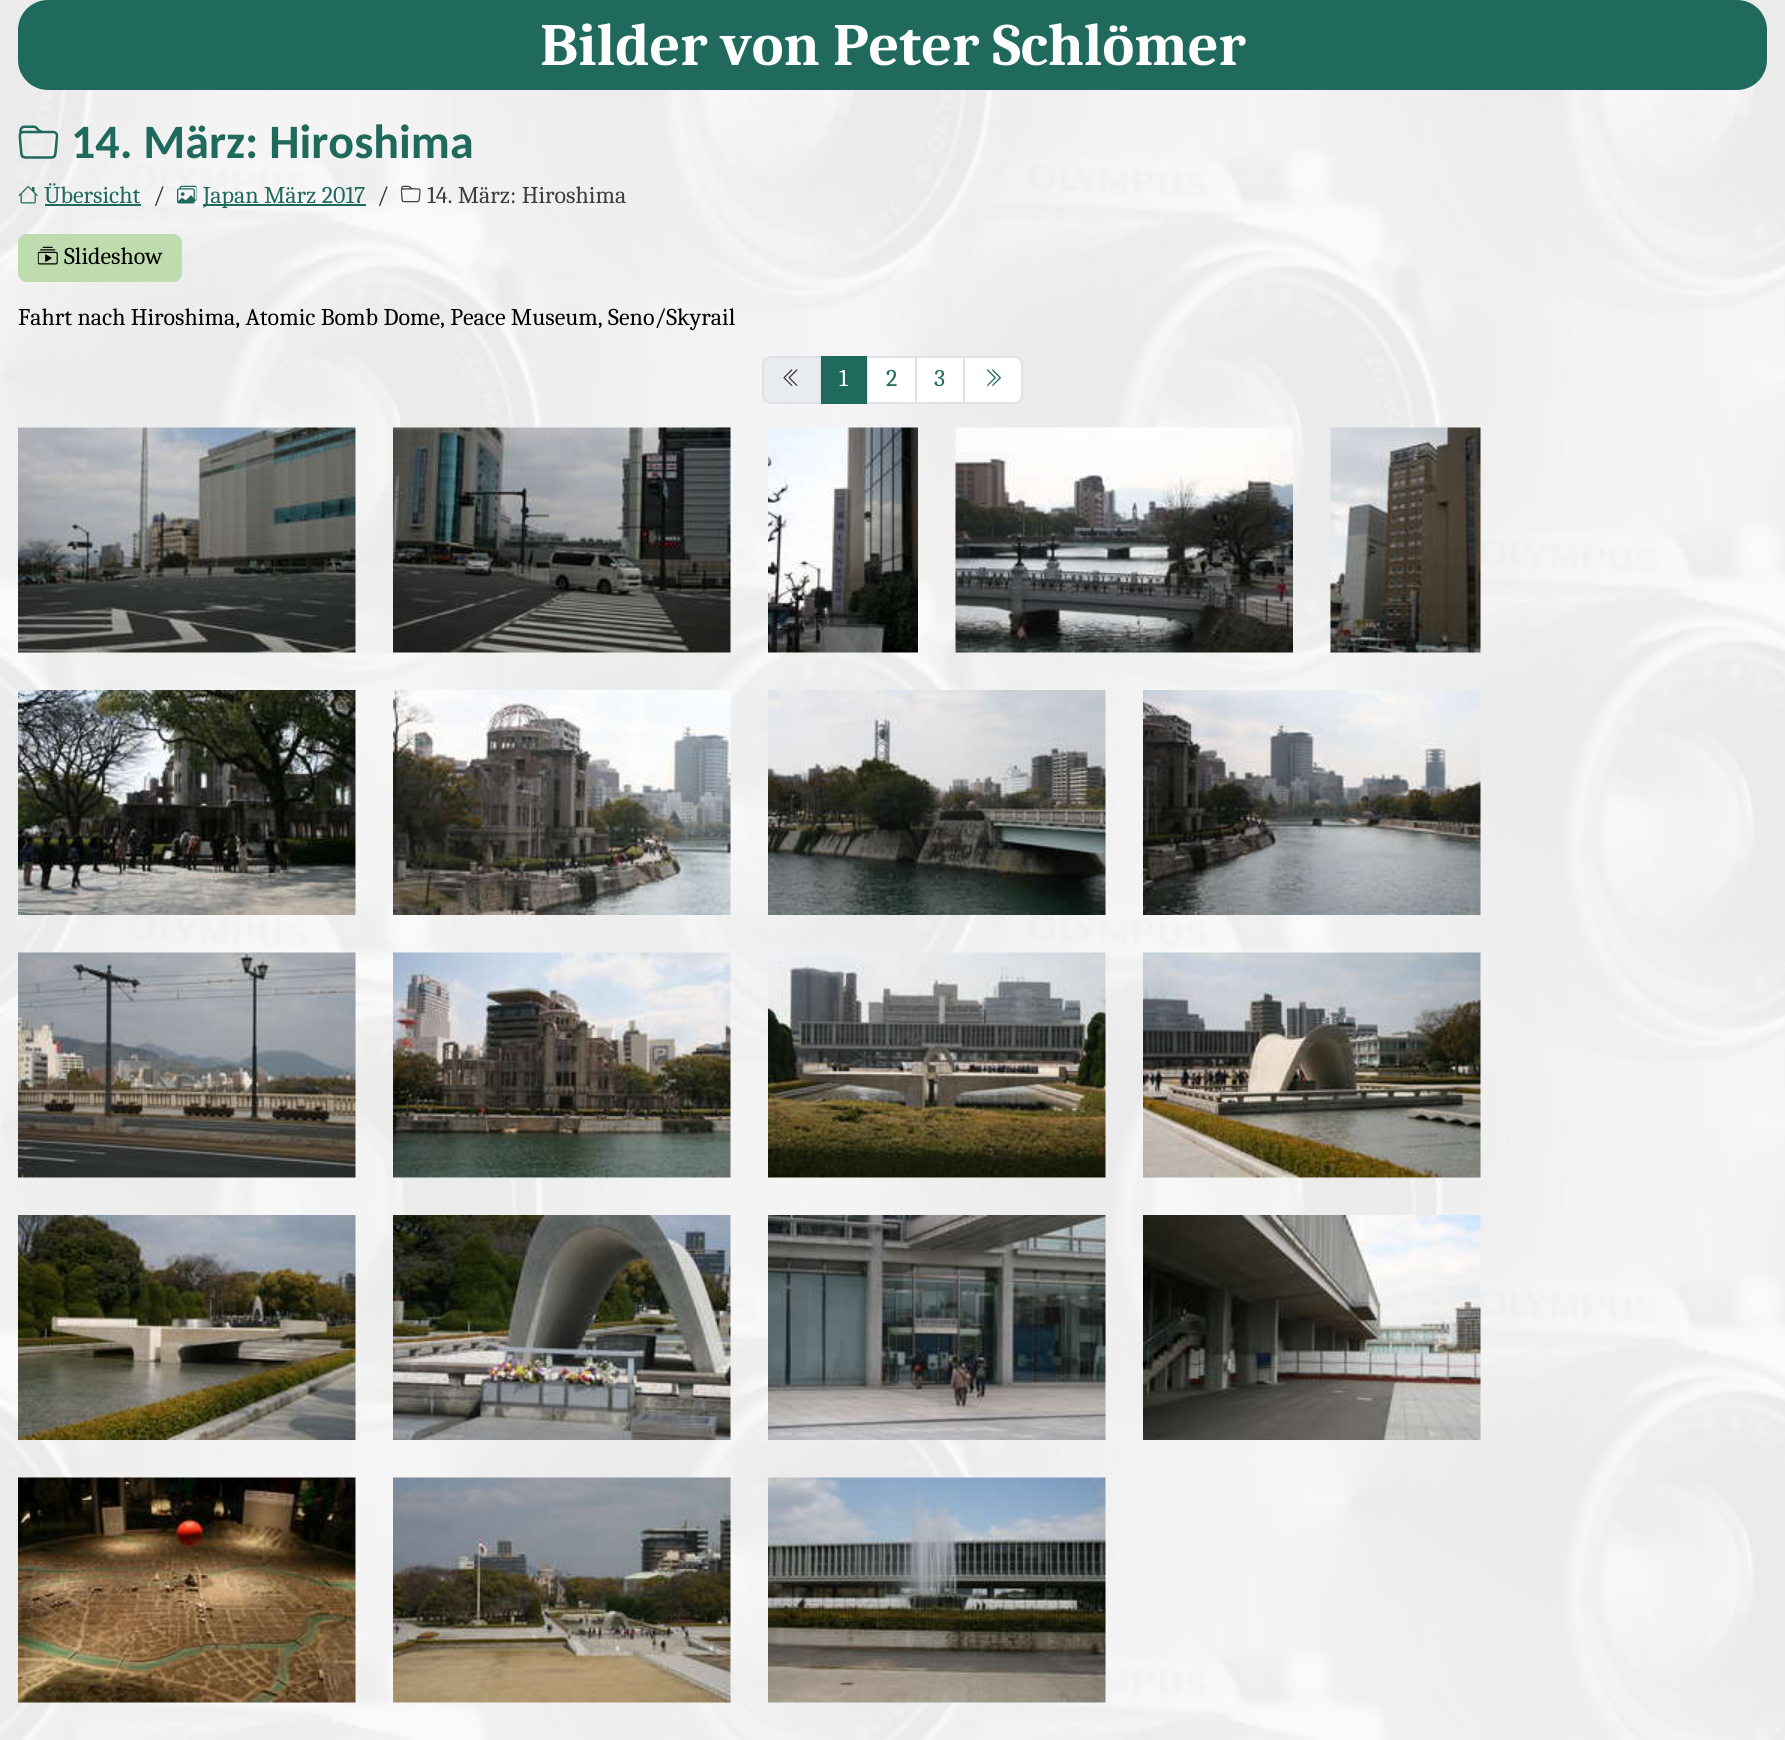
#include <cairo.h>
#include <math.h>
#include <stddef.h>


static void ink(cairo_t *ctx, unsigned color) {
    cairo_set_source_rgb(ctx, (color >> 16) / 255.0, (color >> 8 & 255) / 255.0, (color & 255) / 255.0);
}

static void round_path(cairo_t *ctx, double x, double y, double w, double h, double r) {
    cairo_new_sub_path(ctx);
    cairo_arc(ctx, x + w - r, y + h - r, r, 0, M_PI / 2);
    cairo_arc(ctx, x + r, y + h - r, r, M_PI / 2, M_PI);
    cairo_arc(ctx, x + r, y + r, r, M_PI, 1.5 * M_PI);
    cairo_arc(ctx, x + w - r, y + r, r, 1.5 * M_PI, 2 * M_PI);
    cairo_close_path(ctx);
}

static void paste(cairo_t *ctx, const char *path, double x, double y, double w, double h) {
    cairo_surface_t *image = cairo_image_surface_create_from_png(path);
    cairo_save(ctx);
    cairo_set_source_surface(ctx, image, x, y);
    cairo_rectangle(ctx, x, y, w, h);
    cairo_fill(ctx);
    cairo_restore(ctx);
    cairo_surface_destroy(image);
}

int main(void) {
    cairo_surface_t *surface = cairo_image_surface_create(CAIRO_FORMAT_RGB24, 1785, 1740);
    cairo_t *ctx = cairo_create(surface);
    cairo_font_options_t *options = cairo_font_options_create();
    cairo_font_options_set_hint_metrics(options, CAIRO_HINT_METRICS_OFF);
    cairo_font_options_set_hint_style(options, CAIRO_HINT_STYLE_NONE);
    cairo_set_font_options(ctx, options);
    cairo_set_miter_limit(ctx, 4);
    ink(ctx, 0xFFFFFF);
    cairo_paint(ctx);
    paste(ctx, "media/1.png", 0, 0, 1785, 1740);
    ink(ctx, 0x206A5D);
    round_path(ctx, 18, 0, 1749, 90, 30);
    cairo_fill(ctx);
    cairo_select_font_face(ctx, "Caladea", CAIRO_FONT_SLANT_NORMAL, CAIRO_FONT_WEIGHT_BOLD);
    cairo_set_font_size(ctx, 60);
    ink(ctx, 0xFFFFFF);
    cairo_move_to(ctx, 540, 65);
    cairo_show_text(ctx, "Bilder von Peter Schlömer");
    paste(ctx, "media/2.png", 18, 125, 41, 34);
    cairo_select_font_face(ctx, "Carlito", CAIRO_FONT_SLANT_NORMAL, CAIRO_FONT_WEIGHT_BOLD);
    cairo_set_font_size(ctx, 48);
    ink(ctx, 0x206A5D);
    cairo_move_to(ctx, 71, 158);
    cairo_show_text(ctx, "14. März: Hiroshima");
    paste(ctx, "media/3.png", 18, 186, 20, 18);
    cairo_select_font_face(ctx, "Caladea", CAIRO_FONT_SLANT_NORMAL, CAIRO_FONT_WEIGHT_NORMAL);
    cairo_set_font_size(ctx, 24);
    cairo_move_to(ctx, 44, 203);
    cairo_show_text(ctx, "Übersicht");
    cairo_rectangle(ctx, 45, 204, 96, 2);
    cairo_fill(ctx);
    ink(ctx, 0x3D3D3D);
    cairo_move_to(ctx, 153, 203);
    cairo_show_text(ctx, "/");
    paste(ctx, "media/4.png", 177, 185, 20, 19);
    ink(ctx, 0x206A5D);
    cairo_rectangle(ctx, 203, 204, 163, 2);
    cairo_fill(ctx);
    cairo_move_to(ctx, 203, 203);
    cairo_show_text(ctx, "Japan März 2017");
    ink(ctx, 0x3D3D3D);
    cairo_move_to(ctx, 377, 203);
    cairo_show_text(ctx, "/");
    paste(ctx, "media/5.png", 400, 185, 21, 18);
    cairo_move_to(ctx, 427, 203);
    cairo_show_text(ctx, "14. März: Hiroshima");
    ink(ctx, 0xBFDCAE);
    round_path(ctx, 19, 235, 162, 46, 8);
    cairo_fill_preserve(ctx);
    cairo_stroke(ctx);
    paste(ctx, "media/6.png", 37, 246, 21, 19);
    ink(ctx, 0x000000);
    cairo_move_to(ctx, 64, 264);
    cairo_show_text(ctx, "Slideshow");
    cairo_move_to(ctx, 18, 325);
    cairo_show_text(ctx, "Fahrt nach Hiroshima, Atomic Bomb Dome, Peace Museum, Seno/Skyrail");
    ink(ctx, 0xE9ECEF);
    cairo_new_path(ctx);
    cairo_move_to(ctx, 771, 357);
    cairo_line_to(ctx, 821, 357);
    cairo_line_to(ctx, 821, 403);
    cairo_line_to(ctx, 771, 403);
    cairo_curve_to(ctx, 766.5, 403, 763, 399.5, 763, 395);
    cairo_line_to(ctx, 763, 365);
    cairo_curve_to(ctx, 763, 360.5, 766.5, 357, 771, 357);
    cairo_close_path(ctx);
    cairo_fill_preserve(ctx);
    ink(ctx, 0xDEE2E6);
    cairo_stroke(ctx);
    paste(ctx, "media/7.png", 783, 369, 15, 17);
    ink(ctx, 0xFFFFFF);
    cairo_rectangle(ctx, 867, 357, 49, 46);
    cairo_fill_preserve(ctx);
    ink(ctx, 0xDEE2E6);
    cairo_stroke(ctx);
    ink(ctx, 0x206A5D);
    cairo_rectangle(ctx, 821, 356, 46, 48);
    cairo_fill(ctx);
    ink(ctx, 0xFFFFFF);
    cairo_move_to(ctx, 839, 386);
    cairo_show_text(ctx, "1");
    ink(ctx, 0x206A5D);
    cairo_move_to(ctx, 886, 386);
    cairo_show_text(ctx, "2");
    ink(ctx, 0xFFFFFF);
    cairo_rectangle(ctx, 916, 357, 48, 46);
    cairo_fill_preserve(ctx);
    ink(ctx, 0xDEE2E6);
    cairo_stroke(ctx);
    ink(ctx, 0x206A5D);
    cairo_move_to(ctx, 934, 386);
    cairo_show_text(ctx, "3");
    ink(ctx, 0xFFFFFF);
    cairo_new_path(ctx);
    cairo_move_to(ctx, 964, 357);
    cairo_line_to(ctx, 1014, 357);
    cairo_curve_to(ctx, 1018.5, 357, 1022, 360.5, 1022, 365);
    cairo_line_to(ctx, 1022, 395);
    cairo_curve_to(ctx, 1022, 399.5, 1018.5, 403, 1014, 403);
    cairo_line_to(ctx, 964, 403);
    cairo_close_path(ctx);
    cairo_fill_preserve(ctx);
    ink(ctx, 0xDEE2E6);
    cairo_stroke(ctx);
    paste(ctx, "media/8.png", 987, 369, 14, 17);
    paste(ctx, "media/9.png", 18, 427, 338, 226);
    paste(ctx, "media/10.png", 393, 427, 338, 226);
    paste(ctx, "media/11.png", 768, 427, 150, 226);
    paste(ctx, "media/12.png", 955, 427, 338, 226);
    paste(ctx, "media/13.png", 1330, 427, 151, 226);
    paste(ctx, "media/14.png", 18, 690, 338, 225);
    paste(ctx, "media/15.png", 393, 690, 338, 225);
    paste(ctx, "media/16.png", 768, 690, 338, 225);
    paste(ctx, "media/17.png", 1143, 690, 338, 225);
    paste(ctx, "media/18.png", 18, 952, 338, 226);
    paste(ctx, "media/19.png", 393, 952, 338, 226);
    paste(ctx, "media/20.png", 768, 952, 338, 226);
    paste(ctx, "media/21.png", 1143, 952, 338, 226);
    paste(ctx, "media/22.png", 18, 1215, 338, 225);
    paste(ctx, "media/23.png", 393, 1215, 338, 225);
    paste(ctx, "media/24.png", 768, 1215, 338, 225);
    paste(ctx, "media/25.png", 1143, 1215, 338, 225);
    paste(ctx, "media/26.png", 18, 1477, 338, 226);
    paste(ctx, "media/27.png", 393, 1477, 338, 226);
    paste(ctx, "media/28.png", 768, 1477, 338, 226);
    cairo_surface_write_to_png(surface, "image.png");
    cairo_font_options_destroy(options);
    cairo_destroy(ctx);
    cairo_surface_destroy(surface);
    return 0;
}
